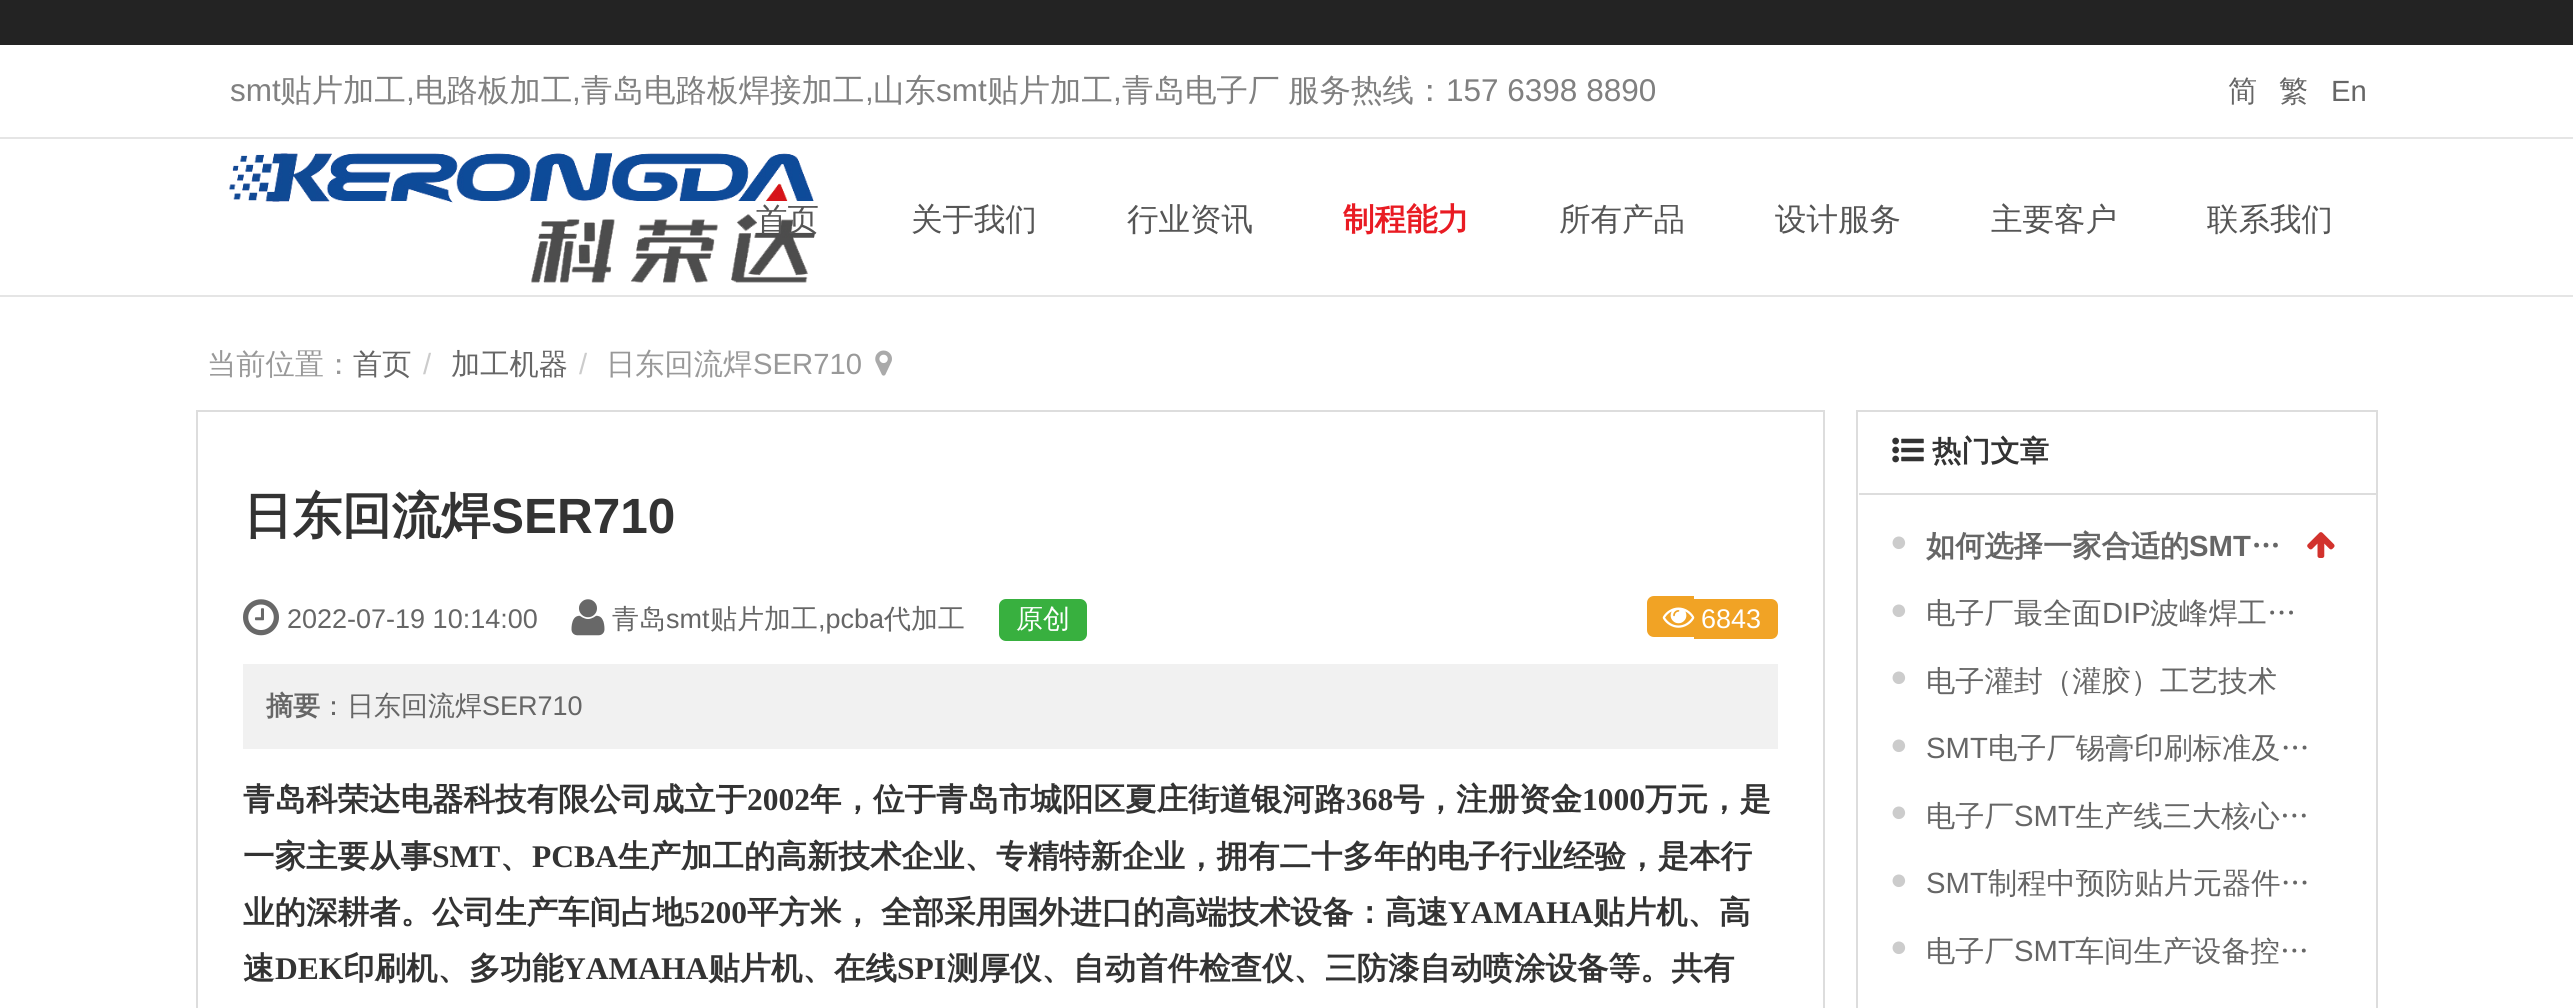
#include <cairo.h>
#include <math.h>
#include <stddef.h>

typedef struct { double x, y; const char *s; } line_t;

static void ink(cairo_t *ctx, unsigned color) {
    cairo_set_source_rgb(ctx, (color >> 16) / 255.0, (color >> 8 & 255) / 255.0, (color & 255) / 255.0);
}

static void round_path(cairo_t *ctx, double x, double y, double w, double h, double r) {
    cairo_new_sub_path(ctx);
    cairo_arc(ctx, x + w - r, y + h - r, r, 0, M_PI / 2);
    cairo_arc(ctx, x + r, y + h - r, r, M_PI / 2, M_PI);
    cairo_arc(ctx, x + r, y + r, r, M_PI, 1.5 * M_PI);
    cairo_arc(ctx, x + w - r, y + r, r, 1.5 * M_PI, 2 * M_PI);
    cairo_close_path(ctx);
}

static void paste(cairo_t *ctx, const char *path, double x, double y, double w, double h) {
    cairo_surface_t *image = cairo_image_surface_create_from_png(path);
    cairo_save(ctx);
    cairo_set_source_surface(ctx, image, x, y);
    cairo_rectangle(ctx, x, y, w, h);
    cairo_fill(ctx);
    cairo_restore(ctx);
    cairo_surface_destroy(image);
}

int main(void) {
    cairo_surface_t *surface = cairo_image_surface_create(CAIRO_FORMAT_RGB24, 2573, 1008);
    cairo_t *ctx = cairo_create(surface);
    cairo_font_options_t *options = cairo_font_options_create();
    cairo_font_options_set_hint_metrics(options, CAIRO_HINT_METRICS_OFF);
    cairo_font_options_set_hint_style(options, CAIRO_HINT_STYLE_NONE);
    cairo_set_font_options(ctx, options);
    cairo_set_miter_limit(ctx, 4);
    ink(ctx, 0x232323);
    cairo_paint(ctx);
    ink(ctx, 0xFFFFFF);
    cairo_rectangle(ctx, 0, 45, 2573, 963);
    cairo_fill(ctx);
    ink(ctx, 0xE5E5E5);
    cairo_rectangle(ctx, 0, 295, 2573, 2);
    cairo_fill(ctx);
    cairo_select_font_face(ctx, "Liberation Sans", CAIRO_FONT_SLANT_NORMAL, CAIRO_FONT_WEIGHT_NORMAL);
    cairo_set_font_size(ctx, 31.5);
    ink(ctx, 0x808080);
    cairo_move_to(ctx, 230, 101);
    cairo_show_text(ctx, "smt");
    cairo_select_font_face(ctx, "WenQuanYi Zen Hei Medium", CAIRO_FONT_SLANT_NORMAL, CAIRO_FONT_WEIGHT_NORMAL);
    cairo_move_to(ctx, 280, 101);
    cairo_show_text(ctx, "贴片加工");
    cairo_select_font_face(ctx, "Liberation Sans", CAIRO_FONT_SLANT_NORMAL, CAIRO_FONT_WEIGHT_NORMAL);
    cairo_move_to(ctx, 406, 101);
    cairo_show_text(ctx, ",");
    cairo_select_font_face(ctx, "WenQuanYi Zen Hei Medium", CAIRO_FONT_SLANT_NORMAL, CAIRO_FONT_WEIGHT_NORMAL);
    cairo_move_to(ctx, 415, 101);
    cairo_show_text(ctx, "电路板加工");
    cairo_select_font_face(ctx, "Liberation Sans", CAIRO_FONT_SLANT_NORMAL, CAIRO_FONT_WEIGHT_NORMAL);
    cairo_move_to(ctx, 572, 101);
    cairo_show_text(ctx, ",");
    cairo_select_font_face(ctx, "WenQuanYi Zen Hei Medium", CAIRO_FONT_SLANT_NORMAL, CAIRO_FONT_WEIGHT_NORMAL);
    cairo_move_to(ctx, 581, 101);
    cairo_show_text(ctx, "青岛电路板焊接加工");
    cairo_select_font_face(ctx, "Liberation Sans", CAIRO_FONT_SLANT_NORMAL, CAIRO_FONT_WEIGHT_NORMAL);
    cairo_move_to(ctx, 865, 101);
    cairo_show_text(ctx, ",");
    cairo_select_font_face(ctx, "WenQuanYi Zen Hei Medium", CAIRO_FONT_SLANT_NORMAL, CAIRO_FONT_WEIGHT_NORMAL);
    cairo_move_to(ctx, 873, 101);
    cairo_show_text(ctx, "山东");
    cairo_select_font_face(ctx, "Liberation Sans", CAIRO_FONT_SLANT_NORMAL, CAIRO_FONT_WEIGHT_NORMAL);
    cairo_move_to(ctx, 936, 101);
    cairo_show_text(ctx, "smt");
    cairo_select_font_face(ctx, "WenQuanYi Zen Hei Medium", CAIRO_FONT_SLANT_NORMAL, CAIRO_FONT_WEIGHT_NORMAL);
    cairo_move_to(ctx, 987, 101);
    cairo_show_text(ctx, "贴片加工");
    cairo_select_font_face(ctx, "Liberation Sans", CAIRO_FONT_SLANT_NORMAL, CAIRO_FONT_WEIGHT_NORMAL);
    cairo_move_to(ctx, 1113, 101);
    cairo_show_text(ctx, ",");
    cairo_select_font_face(ctx, "WenQuanYi Zen Hei Medium", CAIRO_FONT_SLANT_NORMAL, CAIRO_FONT_WEIGHT_NORMAL);
    cairo_move_to(ctx, 1122, 101);
    cairo_show_text(ctx, "青岛电子厂");
    cairo_move_to(ctx, 1288, 101);
    cairo_show_text(ctx, "服务热线：");
    cairo_select_font_face(ctx, "Liberation Sans", CAIRO_FONT_SLANT_NORMAL, CAIRO_FONT_WEIGHT_NORMAL);
    cairo_move_to(ctx, 1446, 101);
    cairo_show_text(ctx, "157 6398 8890");
    paste(ctx, "media/1.png", 229, 153, 586, 130);
    ink(ctx, 0xE5E5E5);
    cairo_rectangle(ctx, 0, 137, 2573, 2);
    cairo_fill(ctx);
    cairo_select_font_face(ctx, "WenQuanYi Zen Hei Medium", CAIRO_FONT_SLANT_NORMAL, CAIRO_FONT_WEIGHT_NORMAL);
    cairo_set_font_size(ctx, 29.25);
    ink(ctx, 0x666666);
    cairo_move_to(ctx, 2228, 101);
    cairo_show_text(ctx, "简");
    cairo_move_to(ctx, 2279, 101);
    cairo_show_text(ctx, "繁");
    cairo_select_font_face(ctx, "Liberation Sans", CAIRO_FONT_SLANT_NORMAL, CAIRO_FONT_WEIGHT_NORMAL);
    cairo_move_to(ctx, 2331, 101);
    cairo_show_text(ctx, "En");
    cairo_select_font_face(ctx, "WenQuanYi Zen Hei Medium", CAIRO_FONT_SLANT_NORMAL, CAIRO_FONT_WEIGHT_NORMAL);
    cairo_set_font_size(ctx, 31.5);
    ink(ctx, 0x555555);
    {
        static const line_t items[] = {
            {756, 230, "首页"},
            {911, 230, "关于我们"},
            {1127, 230, "行业资讯"},
        };
        for (size_t i = 0; i < sizeof items / sizeof *items; i++) {
            cairo_move_to(ctx, items[i].x, items[i].y);
            cairo_show_text(ctx, items[i].s);
        }
    }
    cairo_select_font_face(ctx, "WenQuanYi Zen Hei", CAIRO_FONT_SLANT_NORMAL, CAIRO_FONT_WEIGHT_BOLD);
    ink(ctx, 0xE91B23);
    cairo_move_to(ctx, 1343, 230);
    cairo_show_text(ctx, "制程能力");
    cairo_select_font_face(ctx, "WenQuanYi Zen Hei Medium", CAIRO_FONT_SLANT_NORMAL, CAIRO_FONT_WEIGHT_NORMAL);
    ink(ctx, 0x555555);
    {
        static const line_t items[] = {
            {1559, 230, "所有产品"},
            {1775, 230, "设计服务"},
            {1991, 230, "主要客户"},
            {2207, 230, "联系我们"},
        };
        for (size_t i = 0; i < sizeof items / sizeof *items; i++) {
            cairo_move_to(ctx, items[i].x, items[i].y);
            cairo_show_text(ctx, items[i].s);
        }
    }
    cairo_set_font_size(ctx, 29.25);
    ink(ctx, 0x999999);
    cairo_move_to(ctx, 207, 374);
    cairo_show_text(ctx, "当前位置：");
    ink(ctx, 0x666666);
    cairo_move_to(ctx, 353, 374);
    cairo_show_text(ctx, "首页");
    cairo_select_font_face(ctx, "Liberation Sans", CAIRO_FONT_SLANT_NORMAL, CAIRO_FONT_WEIGHT_NORMAL);
    ink(ctx, 0xCCCCCC);
    cairo_move_to(ctx, 423, 374);
    cairo_show_text(ctx, "/");
    cairo_select_font_face(ctx, "WenQuanYi Zen Hei Medium", CAIRO_FONT_SLANT_NORMAL, CAIRO_FONT_WEIGHT_NORMAL);
    ink(ctx, 0x666666);
    cairo_move_to(ctx, 451, 374);
    cairo_show_text(ctx, "加工机器");
    cairo_select_font_face(ctx, "Liberation Sans", CAIRO_FONT_SLANT_NORMAL, CAIRO_FONT_WEIGHT_NORMAL);
    ink(ctx, 0xCCCCCC);
    cairo_move_to(ctx, 579, 374);
    cairo_show_text(ctx, "/");
    cairo_select_font_face(ctx, "WenQuanYi Zen Hei Medium", CAIRO_FONT_SLANT_NORMAL, CAIRO_FONT_WEIGHT_NORMAL);
    ink(ctx, 0x999999);
    cairo_move_to(ctx, 606, 374);
    cairo_show_text(ctx, "日东回流焊");
    cairo_select_font_face(ctx, "Liberation Sans", CAIRO_FONT_SLANT_NORMAL, CAIRO_FONT_WEIGHT_NORMAL);
    cairo_move_to(ctx, 753, 374);
    cairo_show_text(ctx, "SER710");
    paste(ctx, "media/2.png", 875, 350, 17, 26);
    cairo_rectangle(ctx, 197, 411, 1627, 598);
    ink(ctx, 0xDDDDDD);
    cairo_stroke(ctx);
    cairo_select_font_face(ctx, "WenQuanYi Zen Hei", CAIRO_FONT_SLANT_NORMAL, CAIRO_FONT_WEIGHT_BOLD);
    cairo_set_font_size(ctx, 49.5);
    ink(ctx, 0x333333);
    cairo_move_to(ctx, 243, 533);
    cairo_show_text(ctx, "日东回流焊");
    cairo_select_font_face(ctx, "Liberation Sans", CAIRO_FONT_SLANT_NORMAL, CAIRO_FONT_WEIGHT_BOLD);
    cairo_move_to(ctx, 491, 533);
    cairo_show_text(ctx, "SER710");
    paste(ctx, "media/3.png", 243, 599, 36, 37);
    cairo_select_font_face(ctx, "Liberation Sans", CAIRO_FONT_SLANT_NORMAL, CAIRO_FONT_WEIGHT_NORMAL);
    cairo_set_font_size(ctx, 27);
    ink(ctx, 0x666666);
    cairo_move_to(ctx, 287, 628);
    cairo_show_text(ctx, "2022-07-19 10:14:00");
    paste(ctx, "media/4.png", 571, 599, 34, 37);
    cairo_select_font_face(ctx, "WenQuanYi Zen Hei Medium", CAIRO_FONT_SLANT_NORMAL, CAIRO_FONT_WEIGHT_NORMAL);
    cairo_move_to(ctx, 612, 628);
    cairo_show_text(ctx, "青岛");
    cairo_select_font_face(ctx, "Liberation Sans", CAIRO_FONT_SLANT_NORMAL, CAIRO_FONT_WEIGHT_NORMAL);
    cairo_move_to(ctx, 666, 628);
    cairo_show_text(ctx, "smt");
    cairo_select_font_face(ctx, "WenQuanYi Zen Hei Medium", CAIRO_FONT_SLANT_NORMAL, CAIRO_FONT_WEIGHT_NORMAL);
    cairo_move_to(ctx, 710, 628);
    cairo_show_text(ctx, "贴片加工");
    cairo_select_font_face(ctx, "Liberation Sans", CAIRO_FONT_SLANT_NORMAL, CAIRO_FONT_WEIGHT_NORMAL);
    cairo_move_to(ctx, 818, 628);
    cairo_show_text(ctx, ",pcba");
    cairo_select_font_face(ctx, "WenQuanYi Zen Hei Medium", CAIRO_FONT_SLANT_NORMAL, CAIRO_FONT_WEIGHT_NORMAL);
    cairo_move_to(ctx, 884, 628);
    cairo_show_text(ctx, "代加工");
    ink(ctx, 0x38B03F);
    round_path(ctx, 999, 599, 88, 42, 7);
    cairo_fill(ctx);
    ink(ctx, 0xFFFFFF);
    cairo_move_to(ctx, 1016, 628);
    cairo_show_text(ctx, "原创");
    ink(ctx, 0xF1A325);
    cairo_new_path(ctx);
    cairo_move_to(ctx, 1654, 596);
    cairo_line_to(ctx, 1694, 596);
    cairo_line_to(ctx, 1694, 637);
    cairo_line_to(ctx, 1654, 637);
    cairo_curve_to(ctx, 1650, 637, 1647, 634, 1647, 630);
    cairo_line_to(ctx, 1647, 603);
    cairo_curve_to(ctx, 1647, 599, 1650, 596, 1654, 596);
    cairo_close_path(ctx);
    cairo_fill(ctx);
    cairo_new_path(ctx);
    cairo_move_to(ctx, 1694, 599);
    cairo_line_to(ctx, 1771, 599);
    cairo_curve_to(ctx, 1775, 599, 1778, 602, 1778, 606);
    cairo_line_to(ctx, 1778, 632);
    cairo_curve_to(ctx, 1778, 636, 1775, 639, 1771, 639);
    cairo_line_to(ctx, 1694, 639);
    cairo_close_path(ctx);
    cairo_fill(ctx);
    paste(ctx, "media/5.png", 1662, 607, 33, 21);
    cairo_select_font_face(ctx, "Liberation Sans", CAIRO_FONT_SLANT_NORMAL, CAIRO_FONT_WEIGHT_NORMAL);
    ink(ctx, 0xFFFFFF);
    cairo_move_to(ctx, 1701, 628);
    cairo_show_text(ctx, "6843");
    ink(ctx, 0xF1F1F1);
    cairo_rectangle(ctx, 243, 664, 1535, 85);
    cairo_fill(ctx);
    cairo_select_font_face(ctx, "WenQuanYi Zen Hei", CAIRO_FONT_SLANT_NORMAL, CAIRO_FONT_WEIGHT_BOLD);
    ink(ctx, 0x666666);
    cairo_move_to(ctx, 266, 715);
    cairo_show_text(ctx, "摘要");
    cairo_select_font_face(ctx, "WenQuanYi Zen Hei Medium", CAIRO_FONT_SLANT_NORMAL, CAIRO_FONT_WEIGHT_NORMAL);
    cairo_move_to(ctx, 320, 715);
    cairo_show_text(ctx, "：日东回流焊");
    cairo_select_font_face(ctx, "Liberation Sans", CAIRO_FONT_SLANT_NORMAL, CAIRO_FONT_WEIGHT_NORMAL);
    cairo_move_to(ctx, 482, 715);
    cairo_show_text(ctx, "SER710");
    cairo_select_font_face(ctx, "WenQuanYi Zen Hei", CAIRO_FONT_SLANT_NORMAL, CAIRO_FONT_WEIGHT_BOLD);
    cairo_set_font_size(ctx, 31.5);
    ink(ctx, 0x333333);
    cairo_move_to(ctx, 243, 810);
    cairo_show_text(ctx, "青岛科荣达电器科技有限公司成立于");
    cairo_select_font_face(ctx, "Liberation Serif", CAIRO_FONT_SLANT_NORMAL, CAIRO_FONT_WEIGHT_BOLD);
    cairo_move_to(ctx, 747, 810);
    cairo_show_text(ctx, "2002");
    cairo_select_font_face(ctx, "WenQuanYi Zen Hei", CAIRO_FONT_SLANT_NORMAL, CAIRO_FONT_WEIGHT_BOLD);
    cairo_move_to(ctx, 810, 810);
    cairo_show_text(ctx, "年，位于青岛市城阳区夏庄街道银河路");
    cairo_select_font_face(ctx, "Liberation Serif", CAIRO_FONT_SLANT_NORMAL, CAIRO_FONT_WEIGHT_BOLD);
    cairo_move_to(ctx, 1346, 810);
    cairo_show_text(ctx, "368");
    cairo_select_font_face(ctx, "WenQuanYi Zen Hei", CAIRO_FONT_SLANT_NORMAL, CAIRO_FONT_WEIGHT_BOLD);
    cairo_move_to(ctx, 1393, 810);
    cairo_show_text(ctx, "号，注册资金");
    cairo_select_font_face(ctx, "Liberation Serif", CAIRO_FONT_SLANT_NORMAL, CAIRO_FONT_WEIGHT_BOLD);
    cairo_move_to(ctx, 1582, 810);
    cairo_show_text(ctx, "1000");
    cairo_select_font_face(ctx, "WenQuanYi Zen Hei", CAIRO_FONT_SLANT_NORMAL, CAIRO_FONT_WEIGHT_BOLD);
    cairo_move_to(ctx, 1645, 810);
    cairo_show_text(ctx, "万元，是");
    cairo_move_to(ctx, 243, 867);
    cairo_show_text(ctx, "一家主要从事");
    cairo_select_font_face(ctx, "Liberation Serif", CAIRO_FONT_SLANT_NORMAL, CAIRO_FONT_WEIGHT_BOLD);
    cairo_move_to(ctx, 432, 867);
    cairo_show_text(ctx, "SMT");
    cairo_select_font_face(ctx, "WenQuanYi Zen Hei", CAIRO_FONT_SLANT_NORMAL, CAIRO_FONT_WEIGHT_BOLD);
    cairo_move_to(ctx, 500, 867);
    cairo_show_text(ctx, "、");
    cairo_select_font_face(ctx, "Liberation Serif", CAIRO_FONT_SLANT_NORMAL, CAIRO_FONT_WEIGHT_BOLD);
    cairo_move_to(ctx, 532, 867);
    cairo_show_text(ctx, "PCBA");
    cairo_select_font_face(ctx, "WenQuanYi Zen Hei", CAIRO_FONT_SLANT_NORMAL, CAIRO_FONT_WEIGHT_BOLD);
    cairo_move_to(ctx, 618, 867);
    cairo_show_text(ctx, "生产加工的高新技术企业、专精特新企业，拥有二十多年的电子行业经验，是本行");
    cairo_move_to(ctx, 243, 923);
    cairo_show_text(ctx, "业的深耕者。公司生产车间占地");
    cairo_select_font_face(ctx, "Liberation Serif", CAIRO_FONT_SLANT_NORMAL, CAIRO_FONT_WEIGHT_BOLD);
    cairo_move_to(ctx, 684, 923);
    cairo_show_text(ctx, "5200");
    cairo_select_font_face(ctx, "WenQuanYi Zen Hei", CAIRO_FONT_SLANT_NORMAL, CAIRO_FONT_WEIGHT_BOLD);
    cairo_move_to(ctx, 747, 923);
    cairo_show_text(ctx, "平方米，");
    cairo_move_to(ctx, 881, 923);
    cairo_show_text(ctx, "全部采用国外进口的高端技术设备：高速");
    cairo_select_font_face(ctx, "Liberation Serif", CAIRO_FONT_SLANT_NORMAL, CAIRO_FONT_WEIGHT_BOLD);
    cairo_move_to(ctx, 1448, 923);
    cairo_show_text(ctx, "YAMAHA");
    cairo_select_font_face(ctx, "WenQuanYi Zen Hei", CAIRO_FONT_SLANT_NORMAL, CAIRO_FONT_WEIGHT_BOLD);
    cairo_move_to(ctx, 1593, 923);
    cairo_show_text(ctx, "贴片机、高");
    cairo_move_to(ctx, 243, 979);
    cairo_show_text(ctx, "速");
    cairo_select_font_face(ctx, "Liberation Serif", CAIRO_FONT_SLANT_NORMAL, CAIRO_FONT_WEIGHT_BOLD);
    cairo_move_to(ctx, 275, 979);
    cairo_show_text(ctx, "DEK");
    cairo_select_font_face(ctx, "WenQuanYi Zen Hei", CAIRO_FONT_SLANT_NORMAL, CAIRO_FONT_WEIGHT_BOLD);
    cairo_move_to(ctx, 343, 979);
    cairo_show_text(ctx, "印刷机、多功能");
    cairo_select_font_face(ctx, "Liberation Serif", CAIRO_FONT_SLANT_NORMAL, CAIRO_FONT_WEIGHT_BOLD);
    cairo_move_to(ctx, 563, 979);
    cairo_show_text(ctx, "YAMAHA");
    cairo_select_font_face(ctx, "WenQuanYi Zen Hei", CAIRO_FONT_SLANT_NORMAL, CAIRO_FONT_WEIGHT_BOLD);
    cairo_move_to(ctx, 708, 979);
    cairo_show_text(ctx, "贴片机、在线");
    cairo_select_font_face(ctx, "Liberation Serif", CAIRO_FONT_SLANT_NORMAL, CAIRO_FONT_WEIGHT_BOLD);
    cairo_move_to(ctx, 897, 979);
    cairo_show_text(ctx, "SPI");
    cairo_select_font_face(ctx, "WenQuanYi Zen Hei", CAIRO_FONT_SLANT_NORMAL, CAIRO_FONT_WEIGHT_BOLD);
    cairo_move_to(ctx, 947, 979);
    cairo_show_text(ctx, "测厚仪、自动首件检查仪、三防漆自动喷涂设备等。共有");
    cairo_rectangle(ctx, 1857, 411, 520, 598);
    ink(ctx, 0xDDDDDD);
    cairo_stroke(ctx);
    cairo_rectangle(ctx, 1859, 493, 517, 2);
    cairo_fill(ctx);
    paste(ctx, "media/6.png", 1892, 437, 32, 26);
    cairo_set_font_size(ctx, 29.25);
    ink(ctx, 0x333333);
    cairo_move_to(ctx, 1932, 461);
    cairo_show_text(ctx, "热门文章");
    cairo_select_font_face(ctx, "Liberation Sans", CAIRO_FONT_SLANT_NORMAL, CAIRO_FONT_WEIGHT_NORMAL);
    ink(ctx, 0xCCCCCC);
    cairo_move_to(ctx, 1890, 551);
    cairo_show_text(ctx, "●");
    cairo_select_font_face(ctx, "WenQuanYi Zen Hei", CAIRO_FONT_SLANT_NORMAL, CAIRO_FONT_WEIGHT_BOLD);
    ink(ctx, 0x666666);
    cairo_move_to(ctx, 1926, 556);
    cairo_show_text(ctx, "如何选择一家合适的");
    cairo_select_font_face(ctx, "Liberation Sans", CAIRO_FONT_SLANT_NORMAL, CAIRO_FONT_WEIGHT_BOLD);
    cairo_move_to(ctx, 2189, 556);
    cairo_show_text(ctx, "SMT");
    cairo_select_font_face(ctx, "WenQuanYi Zen Hei", CAIRO_FONT_SLANT_NORMAL, CAIRO_FONT_WEIGHT_BOLD);
    cairo_move_to(ctx, 2251, 556);
    cairo_show_text(ctx, "…");
    paste(ctx, "media/7.png", 2307, 532, 28, 26);
    cairo_select_font_face(ctx, "Liberation Sans", CAIRO_FONT_SLANT_NORMAL, CAIRO_FONT_WEIGHT_NORMAL);
    ink(ctx, 0xCCCCCC);
    cairo_move_to(ctx, 1890, 619);
    cairo_show_text(ctx, "●");
    cairo_select_font_face(ctx, "WenQuanYi Zen Hei Medium", CAIRO_FONT_SLANT_NORMAL, CAIRO_FONT_WEIGHT_NORMAL);
    ink(ctx, 0x666666);
    cairo_move_to(ctx, 1926, 623);
    cairo_show_text(ctx, "电子厂最全面");
    cairo_select_font_face(ctx, "Liberation Sans", CAIRO_FONT_SLANT_NORMAL, CAIRO_FONT_WEIGHT_NORMAL);
    cairo_move_to(ctx, 2102, 623);
    cairo_show_text(ctx, "DIP");
    cairo_select_font_face(ctx, "WenQuanYi Zen Hei Medium", CAIRO_FONT_SLANT_NORMAL, CAIRO_FONT_WEIGHT_NORMAL);
    cairo_move_to(ctx, 2150, 623);
    cairo_show_text(ctx, "波峰焊工…");
    cairo_select_font_face(ctx, "Liberation Sans", CAIRO_FONT_SLANT_NORMAL, CAIRO_FONT_WEIGHT_NORMAL);
    ink(ctx, 0xCCCCCC);
    cairo_move_to(ctx, 1890, 686);
    cairo_show_text(ctx, "●");
    cairo_select_font_face(ctx, "WenQuanYi Zen Hei Medium", CAIRO_FONT_SLANT_NORMAL, CAIRO_FONT_WEIGHT_NORMAL);
    ink(ctx, 0x666666);
    cairo_move_to(ctx, 1926, 691);
    cairo_show_text(ctx, "电子灌封（灌胶）工艺技术");
    cairo_select_font_face(ctx, "Liberation Sans", CAIRO_FONT_SLANT_NORMAL, CAIRO_FONT_WEIGHT_NORMAL);
    ink(ctx, 0xCCCCCC);
    cairo_move_to(ctx, 1890, 754);
    cairo_show_text(ctx, "●");
    ink(ctx, 0x666666);
    cairo_move_to(ctx, 1926, 758);
    cairo_show_text(ctx, "SMT");
    cairo_select_font_face(ctx, "WenQuanYi Zen Hei Medium", CAIRO_FONT_SLANT_NORMAL, CAIRO_FONT_WEIGHT_NORMAL);
    cairo_move_to(ctx, 1988, 758);
    cairo_show_text(ctx, "电子厂锡膏印刷标准及…");
    cairo_select_font_face(ctx, "Liberation Sans", CAIRO_FONT_SLANT_NORMAL, CAIRO_FONT_WEIGHT_NORMAL);
    ink(ctx, 0xCCCCCC);
    cairo_move_to(ctx, 1890, 821);
    cairo_show_text(ctx, "●");
    cairo_select_font_face(ctx, "WenQuanYi Zen Hei Medium", CAIRO_FONT_SLANT_NORMAL, CAIRO_FONT_WEIGHT_NORMAL);
    ink(ctx, 0x666666);
    cairo_move_to(ctx, 1926, 826);
    cairo_show_text(ctx, "电子厂");
    cairo_select_font_face(ctx, "Liberation Sans", CAIRO_FONT_SLANT_NORMAL, CAIRO_FONT_WEIGHT_NORMAL);
    cairo_move_to(ctx, 2014, 826);
    cairo_show_text(ctx, "SMT");
    cairo_select_font_face(ctx, "WenQuanYi Zen Hei Medium", CAIRO_FONT_SLANT_NORMAL, CAIRO_FONT_WEIGHT_NORMAL);
    cairo_move_to(ctx, 2075, 826);
    cairo_show_text(ctx, "生产线三大核心…");
    cairo_select_font_face(ctx, "Liberation Sans", CAIRO_FONT_SLANT_NORMAL, CAIRO_FONT_WEIGHT_NORMAL);
    ink(ctx, 0xCCCCCC);
    cairo_move_to(ctx, 1890, 889);
    cairo_show_text(ctx, "●");
    ink(ctx, 0x666666);
    cairo_move_to(ctx, 1926, 893);
    cairo_show_text(ctx, "SMT");
    cairo_select_font_face(ctx, "WenQuanYi Zen Hei Medium", CAIRO_FONT_SLANT_NORMAL, CAIRO_FONT_WEIGHT_NORMAL);
    cairo_move_to(ctx, 1988, 893);
    cairo_show_text(ctx, "制程中预防贴片元器件…");
    cairo_select_font_face(ctx, "Liberation Sans", CAIRO_FONT_SLANT_NORMAL, CAIRO_FONT_WEIGHT_NORMAL);
    ink(ctx, 0xCCCCCC);
    cairo_move_to(ctx, 1890, 956);
    cairo_show_text(ctx, "●");
    cairo_select_font_face(ctx, "WenQuanYi Zen Hei Medium", CAIRO_FONT_SLANT_NORMAL, CAIRO_FONT_WEIGHT_NORMAL);
    ink(ctx, 0x666666);
    cairo_move_to(ctx, 1926, 961);
    cairo_show_text(ctx, "电子厂");
    cairo_select_font_face(ctx, "Liberation Sans", CAIRO_FONT_SLANT_NORMAL, CAIRO_FONT_WEIGHT_NORMAL);
    cairo_move_to(ctx, 2014, 961);
    cairo_show_text(ctx, "SMT");
    cairo_select_font_face(ctx, "WenQuanYi Zen Hei Medium", CAIRO_FONT_SLANT_NORMAL, CAIRO_FONT_WEIGHT_NORMAL);
    cairo_move_to(ctx, 2075, 961);
    cairo_show_text(ctx, "车间生产设备控…");
    cairo_surface_write_to_png(surface, "image.png");
    cairo_font_options_destroy(options);
    cairo_destroy(ctx);
    cairo_surface_destroy(surface);
    return 0;
}
